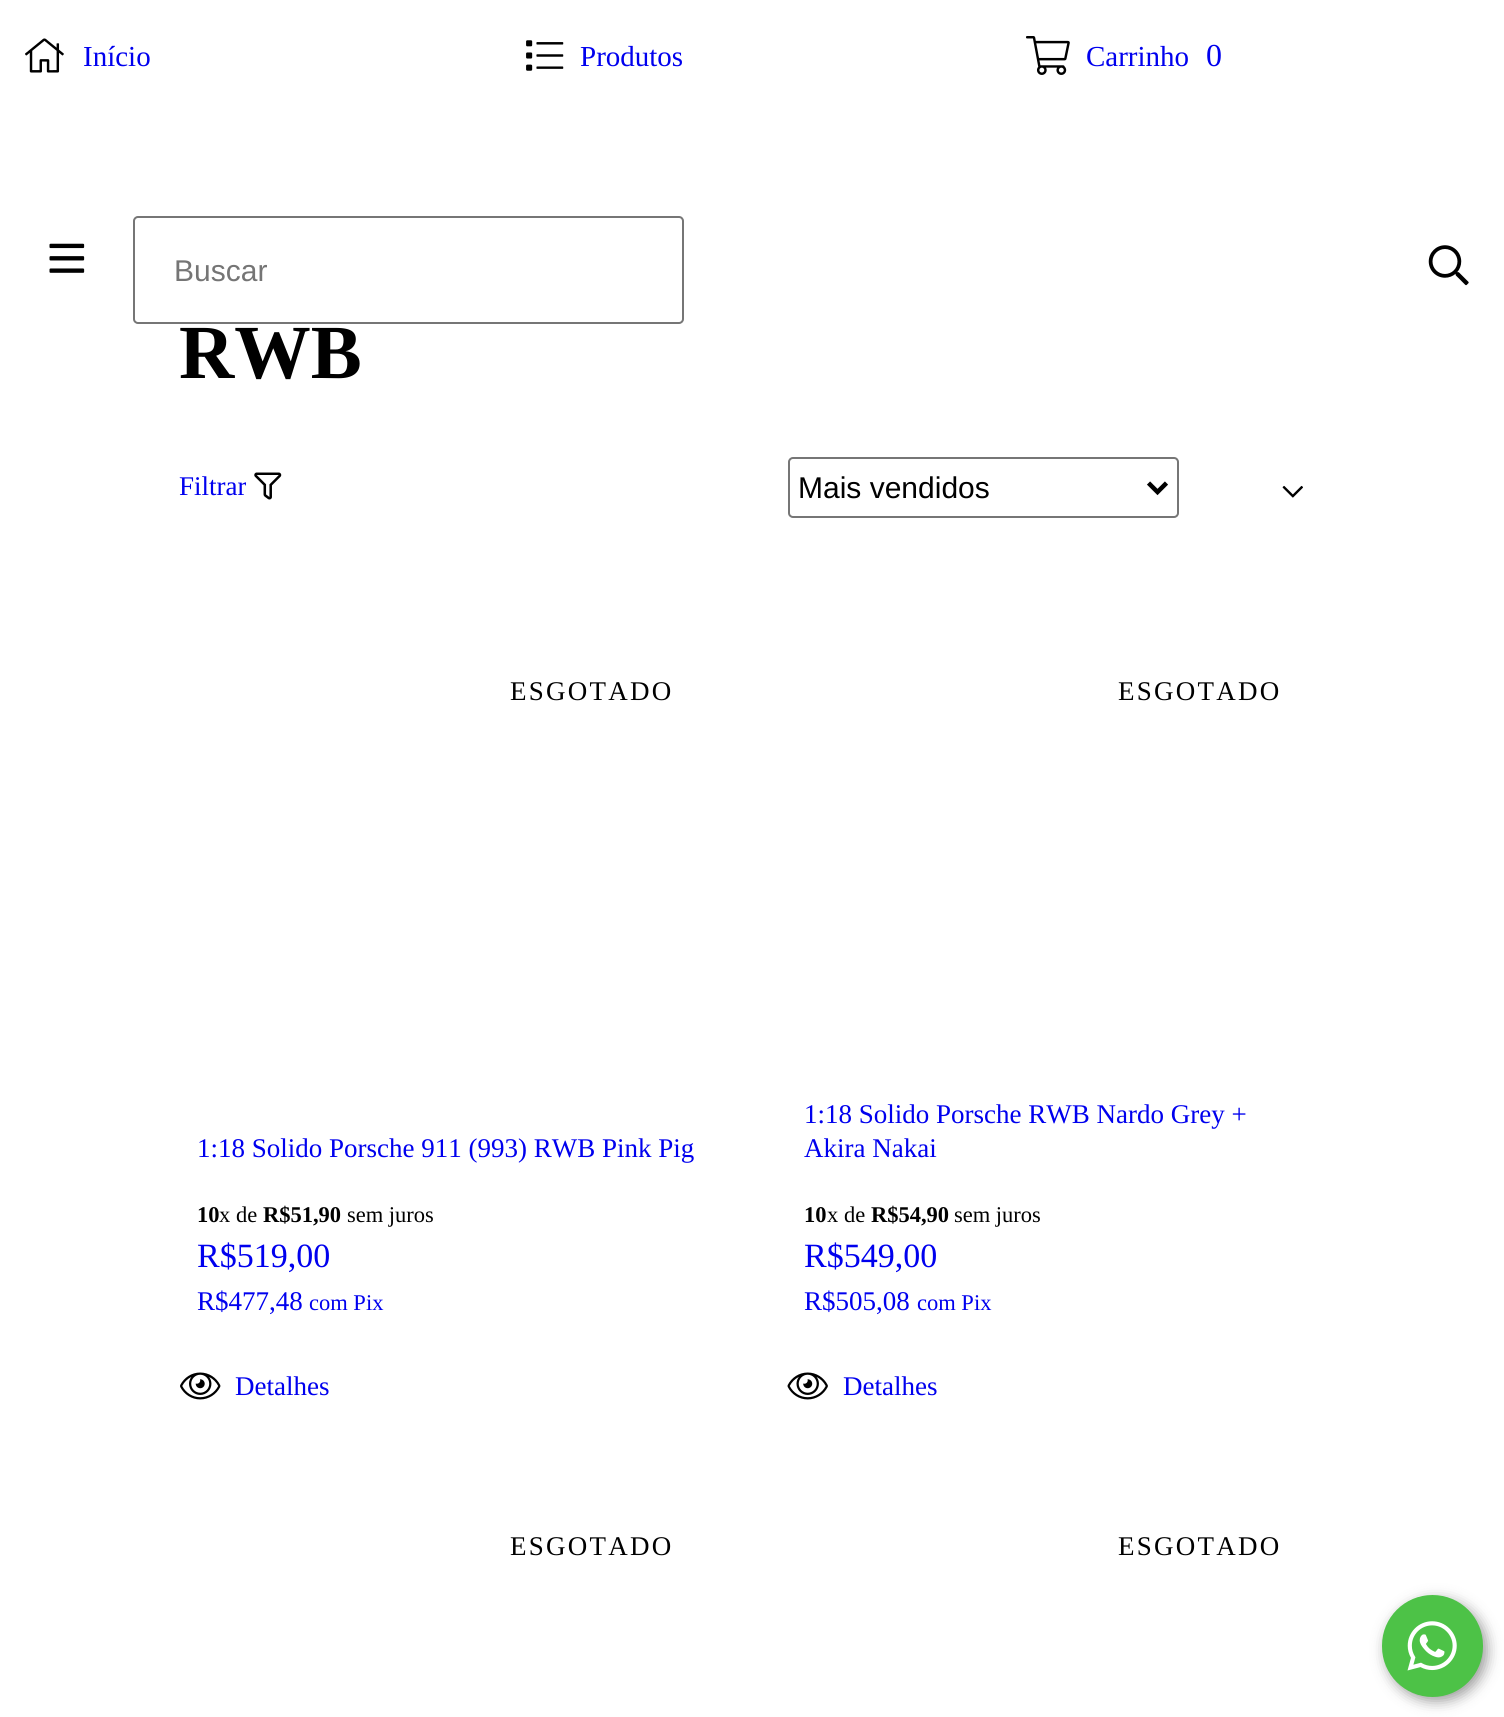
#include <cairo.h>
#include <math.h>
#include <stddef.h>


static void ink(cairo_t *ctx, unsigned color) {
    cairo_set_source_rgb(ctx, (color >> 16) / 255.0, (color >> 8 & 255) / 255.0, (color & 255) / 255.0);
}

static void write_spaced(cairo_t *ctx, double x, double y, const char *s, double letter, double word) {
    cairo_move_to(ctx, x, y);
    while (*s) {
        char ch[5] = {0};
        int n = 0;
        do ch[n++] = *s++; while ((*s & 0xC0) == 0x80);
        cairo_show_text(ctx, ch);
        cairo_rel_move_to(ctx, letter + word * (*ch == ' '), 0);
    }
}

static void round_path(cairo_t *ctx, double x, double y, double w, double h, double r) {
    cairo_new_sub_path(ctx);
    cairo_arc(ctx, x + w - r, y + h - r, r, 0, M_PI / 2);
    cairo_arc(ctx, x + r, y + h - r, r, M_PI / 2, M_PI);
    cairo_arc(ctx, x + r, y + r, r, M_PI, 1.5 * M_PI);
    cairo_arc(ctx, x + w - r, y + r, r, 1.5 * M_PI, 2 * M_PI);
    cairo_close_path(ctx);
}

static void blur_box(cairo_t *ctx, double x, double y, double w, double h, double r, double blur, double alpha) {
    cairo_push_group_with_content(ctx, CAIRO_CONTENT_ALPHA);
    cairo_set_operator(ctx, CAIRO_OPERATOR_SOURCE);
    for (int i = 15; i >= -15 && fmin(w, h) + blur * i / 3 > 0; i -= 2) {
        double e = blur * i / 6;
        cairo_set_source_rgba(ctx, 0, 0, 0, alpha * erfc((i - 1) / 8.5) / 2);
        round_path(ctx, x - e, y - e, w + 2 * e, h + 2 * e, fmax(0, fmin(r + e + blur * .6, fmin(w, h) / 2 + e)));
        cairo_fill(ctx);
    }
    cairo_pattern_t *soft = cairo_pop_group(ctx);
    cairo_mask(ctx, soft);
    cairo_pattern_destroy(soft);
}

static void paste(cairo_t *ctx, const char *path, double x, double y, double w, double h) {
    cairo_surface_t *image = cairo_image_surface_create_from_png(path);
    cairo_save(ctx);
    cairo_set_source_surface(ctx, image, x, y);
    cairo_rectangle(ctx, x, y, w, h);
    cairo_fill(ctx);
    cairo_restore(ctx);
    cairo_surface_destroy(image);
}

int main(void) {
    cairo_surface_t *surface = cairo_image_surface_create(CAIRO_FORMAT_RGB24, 1504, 1717);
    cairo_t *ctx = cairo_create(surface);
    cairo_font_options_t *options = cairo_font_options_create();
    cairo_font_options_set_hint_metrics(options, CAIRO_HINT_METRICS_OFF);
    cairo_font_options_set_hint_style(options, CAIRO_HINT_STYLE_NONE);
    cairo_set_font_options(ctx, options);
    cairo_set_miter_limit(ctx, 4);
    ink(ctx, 0xFFFFFF);
    cairo_paint(ctx);
    paste(ctx, "media/1.png", 25, 38, 39, 35);
    cairo_select_font_face(ctx, "Liberation Serif", CAIRO_FONT_SLANT_NORMAL, CAIRO_FONT_WEIGHT_NORMAL);
    cairo_set_font_size(ctx, 29);
    ink(ctx, 0x0000EE);
    cairo_move_to(ctx, 83, 66);
    cairo_show_text(ctx, "Início");
    paste(ctx, "media/2.png", 526, 40, 38, 31);
    cairo_move_to(ctx, 580, 66);
    cairo_show_text(ctx, "Produtos");
    paste(ctx, "media/3.png", 1026, 36, 44, 39);
    cairo_move_to(ctx, 1086, 66);
    cairo_show_text(ctx, "Carrinho");
    cairo_set_font_size(ctx, 32);
    cairo_move_to(ctx, 1206, 66);
    cairo_show_text(ctx, "0");
    paste(ctx, "media/4.png", 49, 243, 36, 30);
    round_path(ctx, 134, 217, 549, 106, 4);
    ink(ctx, 0x767676);
    cairo_stroke(ctx);
    cairo_select_font_face(ctx, "Liberation Sans", CAIRO_FONT_SLANT_NORMAL, CAIRO_FONT_WEIGHT_NORMAL);
    cairo_set_font_size(ctx, 30);
    ink(ctx, 0x757575);
    cairo_move_to(ctx, 174, 281);
    cairo_show_text(ctx, "Buscar");
    paste(ctx, "media/5.png", 1428, 245, 41, 41);
    cairo_select_font_face(ctx, "Liberation Serif", CAIRO_FONT_SLANT_NORMAL, CAIRO_FONT_WEIGHT_BOLD);
    cairo_set_font_size(ctx, 76.5);
    ink(ctx, 0x000000);
    cairo_move_to(ctx, 179, 378);
    cairo_show_text(ctx, "RWB");
    cairo_select_font_face(ctx, "Liberation Serif", CAIRO_FONT_SLANT_NORMAL, CAIRO_FONT_WEIGHT_NORMAL);
    cairo_set_font_size(ctx, 27);
    ink(ctx, 0x0000EE);
    cairo_move_to(ctx, 179, 495);
    cairo_show_text(ctx, "Filtrar");
    paste(ctx, "media/6.png", 254, 472, 28, 28);
    round_path(ctx, 789, 458, 389, 59, 4);
    ink(ctx, 0x767676);
    cairo_stroke(ctx);
    cairo_new_path(ctx);
    cairo_move_to(ctx, 1148.5, 483);
    cairo_line_to(ctx, 1157.5, 492);
    cairo_line_to(ctx, 1166.5, 483);
    ink(ctx, 0x000000);
    cairo_set_line_width(ctx, 4.5);
    cairo_stroke(ctx);
    cairo_select_font_face(ctx, "Liberation Sans", CAIRO_FONT_SLANT_NORMAL, CAIRO_FONT_WEIGHT_NORMAL);
    cairo_set_font_size(ctx, 30);
    cairo_move_to(ctx, 798, 498);
    cairo_show_text(ctx, "Mais vendidos");
    paste(ctx, "media/7.png", 1282, 485, 21, 13);
    cairo_select_font_face(ctx, "Liberation Serif", CAIRO_FONT_SLANT_NORMAL, CAIRO_FONT_WEIGHT_NORMAL);
    cairo_set_font_size(ctx, 27);
    write_spaced(ctx, 510, 700, "ESGOTADO", 2.25, 0);
    ink(ctx, 0x0000EE);
    cairo_move_to(ctx, 197, 1157);
    cairo_show_text(ctx, "1:18 Solido Porsche 911 (993) RWB Pink Pig");
    cairo_select_font_face(ctx, "Liberation Serif", CAIRO_FONT_SLANT_NORMAL, CAIRO_FONT_WEIGHT_BOLD);
    cairo_set_font_size(ctx, 22.5);
    ink(ctx, 0x000000);
    cairo_move_to(ctx, 197, 1222);
    cairo_show_text(ctx, "10");
    cairo_select_font_face(ctx, "Liberation Serif", CAIRO_FONT_SLANT_NORMAL, CAIRO_FONT_WEIGHT_NORMAL);
    cairo_move_to(ctx, 219, 1222);
    cairo_show_text(ctx, "x de");
    cairo_select_font_face(ctx, "Liberation Serif", CAIRO_FONT_SLANT_NORMAL, CAIRO_FONT_WEIGHT_BOLD);
    cairo_move_to(ctx, 263, 1222);
    cairo_show_text(ctx, "R$51,90");
    cairo_select_font_face(ctx, "Liberation Serif", CAIRO_FONT_SLANT_NORMAL, CAIRO_FONT_WEIGHT_NORMAL);
    cairo_move_to(ctx, 347, 1222);
    cairo_show_text(ctx, "sem juros");
    cairo_set_font_size(ctx, 34);
    ink(ctx, 0x0000EE);
    cairo_move_to(ctx, 197, 1267);
    cairo_show_text(ctx, "R$519,00");
    cairo_set_font_size(ctx, 27);
    cairo_move_to(ctx, 197, 1310);
    cairo_show_text(ctx, "R$477,48");
    cairo_set_font_size(ctx, 22.5);
    cairo_move_to(ctx, 309, 1310);
    cairo_show_text(ctx, "com Pix");
    paste(ctx, "media/8.png", 180, 1372, 41, 28);
    cairo_set_font_size(ctx, 27);
    cairo_move_to(ctx, 235, 1395);
    cairo_show_text(ctx, "Detalhes");
    ink(ctx, 0x000000);
    write_spaced(ctx, 1118, 700, "ESGOTADO", 2.25, 0);
    ink(ctx, 0x0000EE);
    cairo_move_to(ctx, 804, 1123);
    cairo_show_text(ctx, "1:18 Solido Porsche RWB Nardo Grey +");
    cairo_move_to(ctx, 804, 1157);
    cairo_show_text(ctx, "Akira Nakai");
    cairo_select_font_face(ctx, "Liberation Serif", CAIRO_FONT_SLANT_NORMAL, CAIRO_FONT_WEIGHT_BOLD);
    cairo_set_font_size(ctx, 22.5);
    ink(ctx, 0x000000);
    cairo_move_to(ctx, 804, 1222);
    cairo_show_text(ctx, "10");
    cairo_select_font_face(ctx, "Liberation Serif", CAIRO_FONT_SLANT_NORMAL, CAIRO_FONT_WEIGHT_NORMAL);
    cairo_move_to(ctx, 827, 1222);
    cairo_show_text(ctx, "x de");
    cairo_select_font_face(ctx, "Liberation Serif", CAIRO_FONT_SLANT_NORMAL, CAIRO_FONT_WEIGHT_BOLD);
    cairo_move_to(ctx, 871, 1222);
    cairo_show_text(ctx, "R$54,90");
    cairo_select_font_face(ctx, "Liberation Serif", CAIRO_FONT_SLANT_NORMAL, CAIRO_FONT_WEIGHT_NORMAL);
    cairo_move_to(ctx, 954, 1222);
    cairo_show_text(ctx, "sem juros");
    cairo_set_font_size(ctx, 34);
    ink(ctx, 0x0000EE);
    cairo_move_to(ctx, 804, 1267);
    cairo_show_text(ctx, "R$549,00");
    cairo_set_font_size(ctx, 27);
    cairo_move_to(ctx, 804, 1310);
    cairo_show_text(ctx, "R$505,08");
    cairo_set_font_size(ctx, 22.5);
    cairo_move_to(ctx, 917, 1310);
    cairo_show_text(ctx, "com Pix");
    paste(ctx, "media/9.png", 787, 1372, 41, 28);
    cairo_set_font_size(ctx, 27);
    cairo_move_to(ctx, 843, 1395);
    cairo_show_text(ctx, "Detalhes");
    ink(ctx, 0x000000);
    write_spaced(ctx, 510, 1555, "ESGOTADO", 2.25, 0);
    write_spaced(ctx, 1118, 1555, "ESGOTADO", 2.25, 0);
    ink(ctx, 0x000000);
    blur_box(ctx, 1386, 1600, 101, 101, 50.5, 7, 0.4);
    ink(ctx, 0x4DC247);
    round_path(ctx, 1382, 1595, 101, 102, 50.5);
    cairo_fill(ctx);
    paste(ctx, "media/10.png", 1407, 1621, 50, 50);
    cairo_surface_write_to_png(surface, "image.png");
    cairo_font_options_destroy(options);
    cairo_destroy(ctx);
    cairo_surface_destroy(surface);
    return 0;
}
